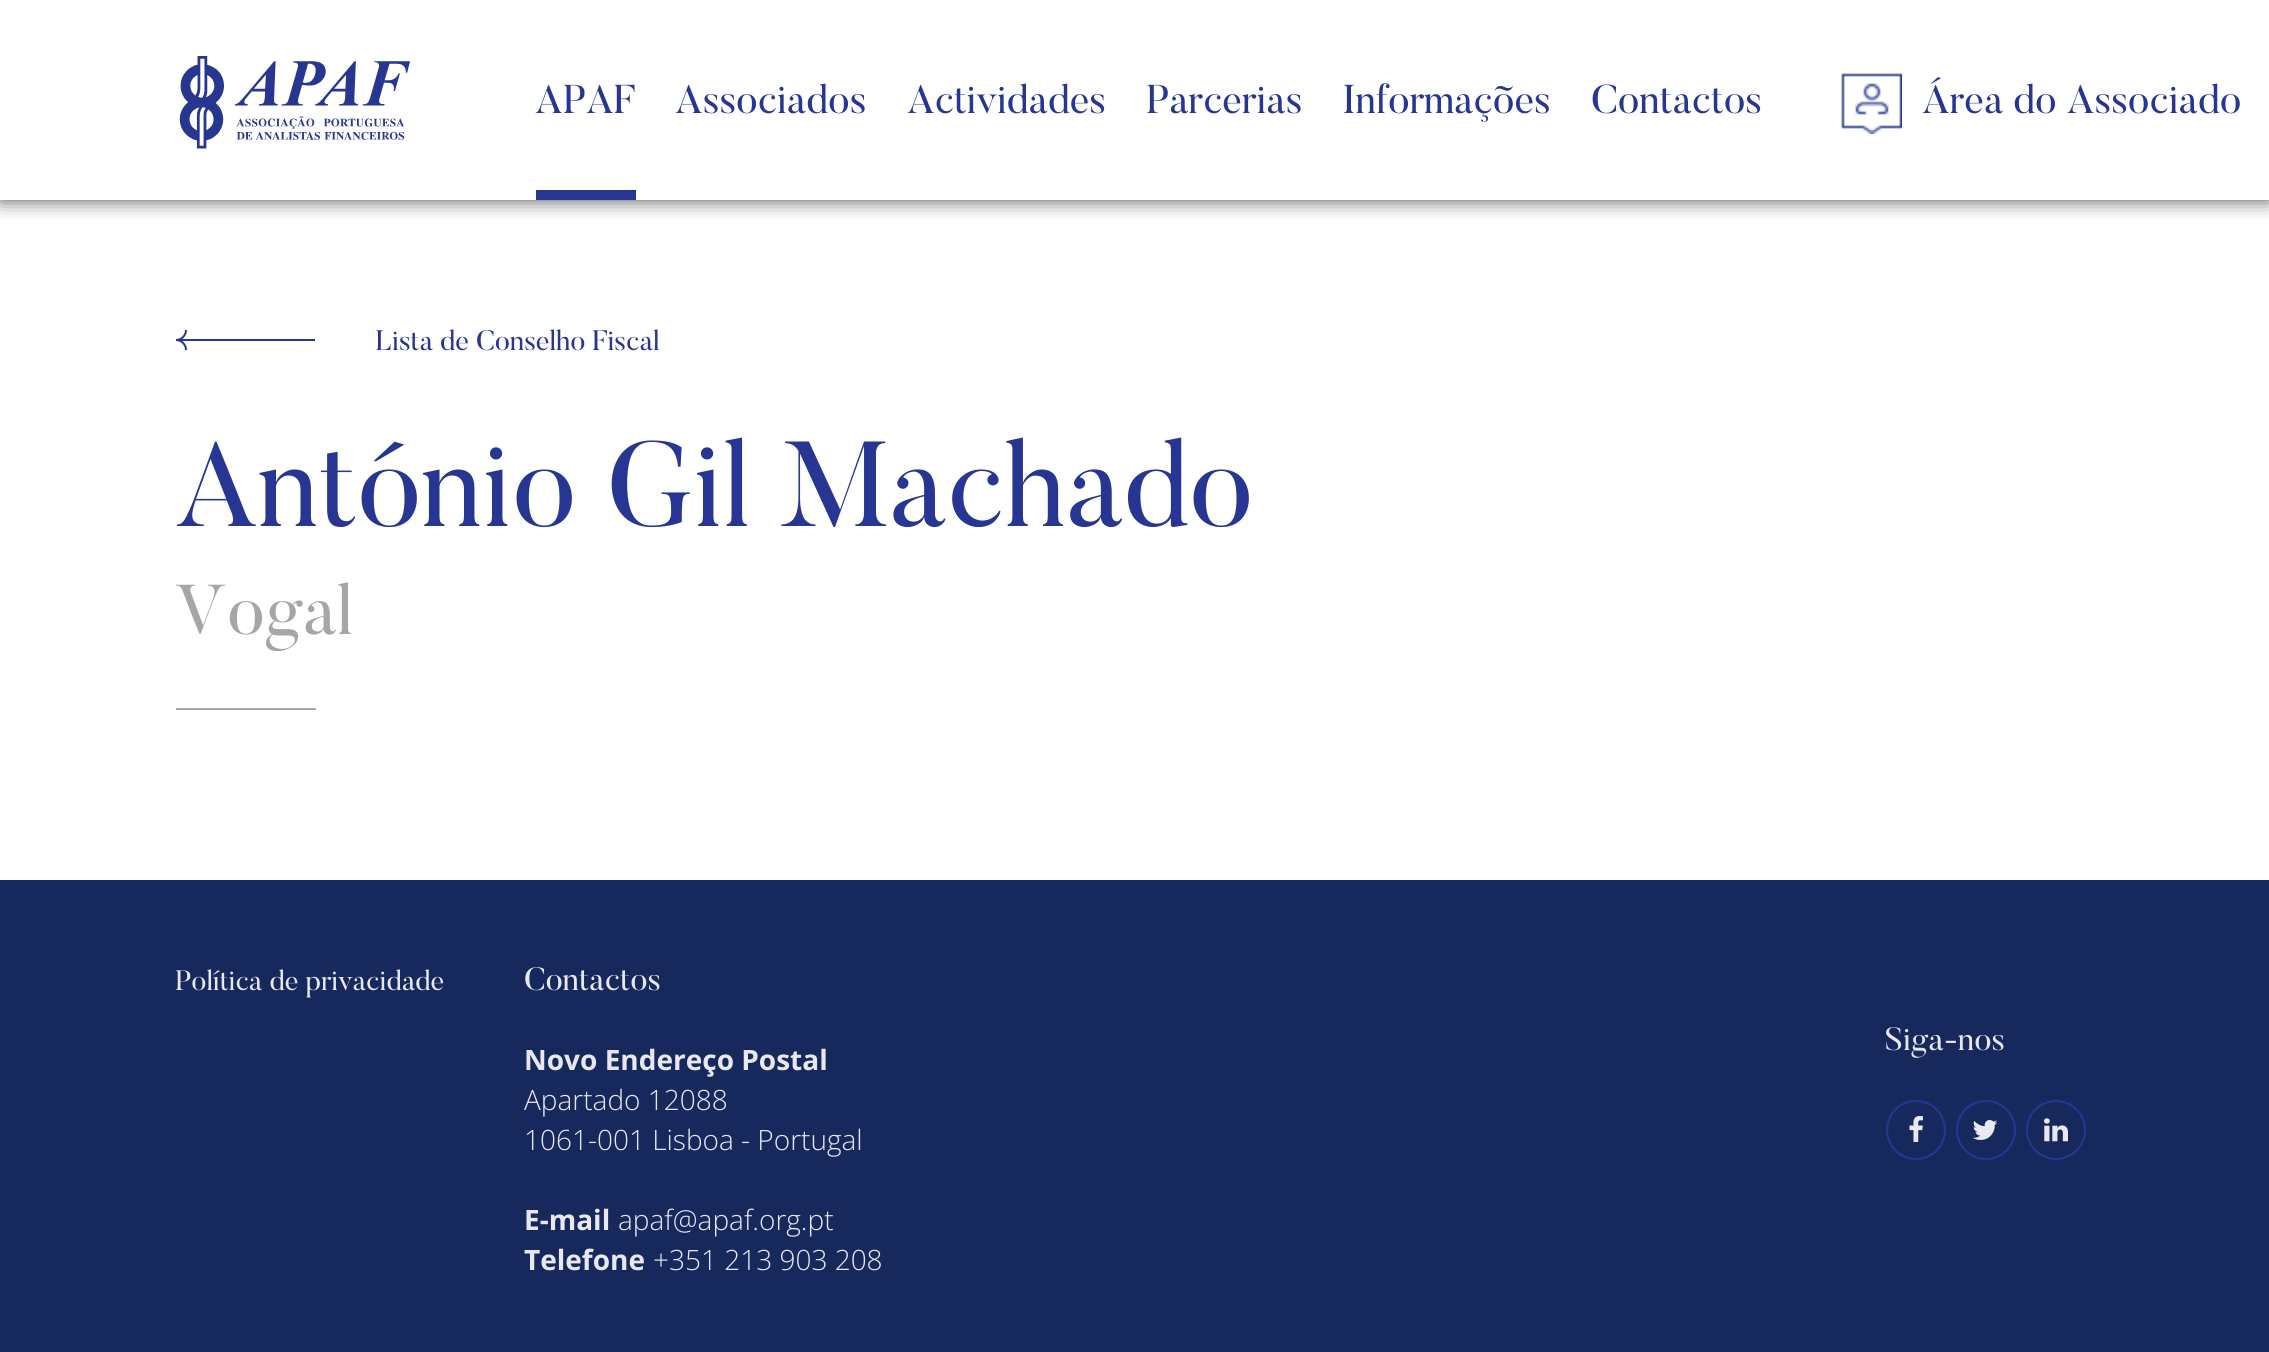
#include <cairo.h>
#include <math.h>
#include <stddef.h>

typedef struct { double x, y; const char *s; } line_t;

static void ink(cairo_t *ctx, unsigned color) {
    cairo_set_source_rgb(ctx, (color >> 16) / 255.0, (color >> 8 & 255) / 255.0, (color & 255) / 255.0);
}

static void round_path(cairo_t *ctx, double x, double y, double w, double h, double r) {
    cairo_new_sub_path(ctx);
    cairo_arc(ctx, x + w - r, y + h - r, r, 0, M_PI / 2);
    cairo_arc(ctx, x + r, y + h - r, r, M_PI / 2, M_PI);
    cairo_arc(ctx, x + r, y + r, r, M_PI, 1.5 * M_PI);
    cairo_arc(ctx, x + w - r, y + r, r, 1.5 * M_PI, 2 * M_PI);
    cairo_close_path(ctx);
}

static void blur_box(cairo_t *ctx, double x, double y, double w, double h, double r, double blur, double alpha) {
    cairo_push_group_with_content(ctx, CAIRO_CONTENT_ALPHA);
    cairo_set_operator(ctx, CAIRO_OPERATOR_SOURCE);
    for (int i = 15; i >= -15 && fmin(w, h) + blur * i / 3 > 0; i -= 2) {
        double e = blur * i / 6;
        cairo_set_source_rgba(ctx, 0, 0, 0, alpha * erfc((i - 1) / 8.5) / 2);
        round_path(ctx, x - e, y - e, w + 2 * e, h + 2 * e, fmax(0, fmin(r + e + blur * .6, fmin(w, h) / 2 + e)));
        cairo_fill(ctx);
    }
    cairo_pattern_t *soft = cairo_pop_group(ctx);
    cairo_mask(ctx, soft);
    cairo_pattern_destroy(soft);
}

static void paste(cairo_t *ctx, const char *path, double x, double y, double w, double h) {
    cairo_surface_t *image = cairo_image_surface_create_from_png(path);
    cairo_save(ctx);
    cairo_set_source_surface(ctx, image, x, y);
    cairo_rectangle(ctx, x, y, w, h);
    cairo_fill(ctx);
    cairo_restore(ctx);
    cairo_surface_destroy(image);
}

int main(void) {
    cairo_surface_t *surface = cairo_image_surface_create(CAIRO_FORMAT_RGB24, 2269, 1352);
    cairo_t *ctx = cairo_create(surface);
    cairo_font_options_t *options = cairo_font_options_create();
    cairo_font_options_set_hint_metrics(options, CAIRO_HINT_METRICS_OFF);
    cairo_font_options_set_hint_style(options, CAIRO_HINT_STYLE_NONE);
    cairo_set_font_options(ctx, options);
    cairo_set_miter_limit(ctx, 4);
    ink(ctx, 0xFFFFFF);
    cairo_paint(ctx);
    cairo_save(ctx);
    cairo_rectangle(ctx, 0, 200, 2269, 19);
    cairo_clip(ctx);
    ink(ctx, 0x000000);
    blur_box(ctx, 0, 0, 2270, 200, 0, 10, 0.7);
    cairo_restore(ctx);
    paste(ctx, "media/1.png", 179, 56, 231, 93);
    cairo_select_font_face(ctx, "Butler", CAIRO_FONT_SLANT_NORMAL, CAIRO_FONT_WEIGHT_NORMAL);
    cairo_set_font_size(ctx, 40);
    ink(ctx, 0x263692);
    cairo_move_to(ctx, 535, 113);
    cairo_show_text(ctx, "APAF");
    cairo_rectangle(ctx, 536, 190, 100, 10);
    cairo_fill(ctx);
    {
        static const line_t items[] = {
            {675, 113, "Associados"},
            {907, 113, "Actividades"},
            {1146, 113, "Parcerias"},
            {1342, 113, "Informações"},
            {1591, 113, "Contactos"},
        };
        for (size_t i = 0; i < sizeof items / sizeof *items; i++) {
            cairo_move_to(ctx, items[i].x, items[i].y);
            cairo_show_text(ctx, items[i].s);
        }
    }
    paste(ctx, "media/2.png", 1841, 73, 61, 61);
    cairo_move_to(ctx, 1922, 113);
    cairo_show_text(ctx, "Área do Associado");
    paste(ctx, "media/3.png", 176, 330, 139, 20);
    cairo_set_font_size(ctx, 28);
    cairo_move_to(ctx, 375, 350);
    cairo_show_text(ctx, "Lista de Conselho Fiscal");
    cairo_set_font_size(ctx, 120);
    cairo_move_to(ctx, 175, 526);
    cairo_show_text(ctx, "António Gil Machado");
    cairo_set_font_size(ctx, 70);
    ink(ctx, 0xA6A6A6);
    cairo_move_to(ctx, 175, 634);
    cairo_show_text(ctx, "Vogal");
    cairo_rectangle(ctx, 176, 708, 140, 2);
    cairo_fill(ctx);
    ink(ctx, 0x17295C);
    cairo_rectangle(ctx, 0, 880, 2269, 472);
    cairo_fill(ctx);
    cairo_set_font_size(ctx, 28);
    ink(ctx, 0xE9E8F1);
    cairo_move_to(ctx, 175, 990);
    cairo_show_text(ctx, "Política de privacidade");
    cairo_set_font_size(ctx, 32);
    cairo_move_to(ctx, 524, 990);
    cairo_show_text(ctx, "Contactos");
    cairo_select_font_face(ctx, "Open Sans", CAIRO_FONT_SLANT_NORMAL, CAIRO_FONT_WEIGHT_BOLD);
    cairo_set_font_size(ctx, 28);
    cairo_move_to(ctx, 524, 1070);
    cairo_show_text(ctx, "Novo Endereço Postal");
    cairo_select_font_face(ctx, "Open Sans Light", CAIRO_FONT_SLANT_NORMAL, CAIRO_FONT_WEIGHT_NORMAL);
    cairo_move_to(ctx, 524, 1110);
    cairo_show_text(ctx, "Apartado 12088");
    cairo_move_to(ctx, 524, 1150);
    cairo_show_text(ctx, "1061-001 Lisboa - Portugal");
    cairo_select_font_face(ctx, "Open Sans", CAIRO_FONT_SLANT_NORMAL, CAIRO_FONT_WEIGHT_BOLD);
    cairo_move_to(ctx, 524, 1230);
    cairo_show_text(ctx, "E-mail");
    cairo_select_font_face(ctx, "Open Sans Light", CAIRO_FONT_SLANT_NORMAL, CAIRO_FONT_WEIGHT_NORMAL);
    cairo_move_to(ctx, 618, 1230);
    cairo_show_text(ctx, "apaf@apaf.org.pt");
    cairo_select_font_face(ctx, "Open Sans", CAIRO_FONT_SLANT_NORMAL, CAIRO_FONT_WEIGHT_BOLD);
    cairo_move_to(ctx, 524, 1270);
    cairo_show_text(ctx, "Telefone");
    cairo_select_font_face(ctx, "Open Sans Light", CAIRO_FONT_SLANT_NORMAL, CAIRO_FONT_WEIGHT_NORMAL);
    cairo_move_to(ctx, 653, 1270);
    cairo_show_text(ctx, "+351 213 903 208");
    cairo_select_font_face(ctx, "Butler", CAIRO_FONT_SLANT_NORMAL, CAIRO_FONT_WEIGHT_NORMAL);
    cairo_set_font_size(ctx, 32);
    cairo_move_to(ctx, 1885, 1050);
    cairo_show_text(ctx, "Siga-nos");
    cairo_new_path(ctx);
    cairo_arc(ctx, 1916, 1130, 29, 0, 2 * M_PI);
    ink(ctx, 0x263692);
    cairo_stroke(ctx);
    paste(ctx, "media/4.png", 1909, 1116, 14, 26);
    cairo_arc(ctx, 1986, 1130, 29, 0, 2 * M_PI);
    cairo_stroke(ctx);
    paste(ctx, "media/5.png", 1972, 1120, 26, 20);
    cairo_arc(ctx, 2056, 1130, 29, 0, 2 * M_PI);
    cairo_stroke(ctx);
    paste(ctx, "media/6.png", 2044, 1118, 24, 24);
    cairo_surface_write_to_png(surface, "image.png");
    cairo_font_options_destroy(options);
    cairo_destroy(ctx);
    cairo_surface_destroy(surface);
    return 0;
}
